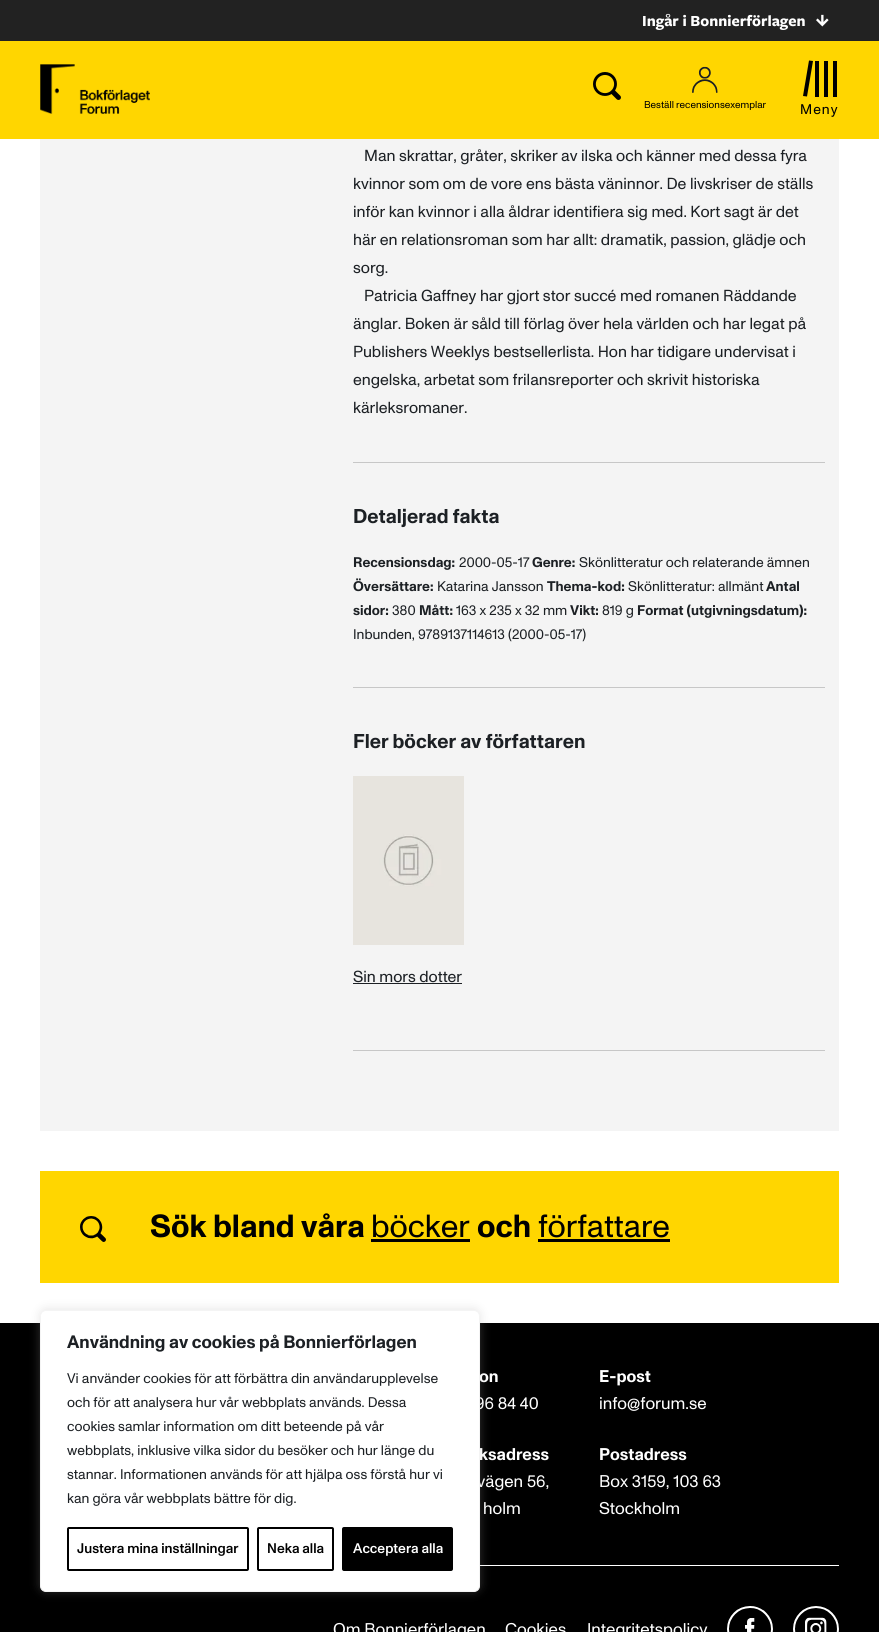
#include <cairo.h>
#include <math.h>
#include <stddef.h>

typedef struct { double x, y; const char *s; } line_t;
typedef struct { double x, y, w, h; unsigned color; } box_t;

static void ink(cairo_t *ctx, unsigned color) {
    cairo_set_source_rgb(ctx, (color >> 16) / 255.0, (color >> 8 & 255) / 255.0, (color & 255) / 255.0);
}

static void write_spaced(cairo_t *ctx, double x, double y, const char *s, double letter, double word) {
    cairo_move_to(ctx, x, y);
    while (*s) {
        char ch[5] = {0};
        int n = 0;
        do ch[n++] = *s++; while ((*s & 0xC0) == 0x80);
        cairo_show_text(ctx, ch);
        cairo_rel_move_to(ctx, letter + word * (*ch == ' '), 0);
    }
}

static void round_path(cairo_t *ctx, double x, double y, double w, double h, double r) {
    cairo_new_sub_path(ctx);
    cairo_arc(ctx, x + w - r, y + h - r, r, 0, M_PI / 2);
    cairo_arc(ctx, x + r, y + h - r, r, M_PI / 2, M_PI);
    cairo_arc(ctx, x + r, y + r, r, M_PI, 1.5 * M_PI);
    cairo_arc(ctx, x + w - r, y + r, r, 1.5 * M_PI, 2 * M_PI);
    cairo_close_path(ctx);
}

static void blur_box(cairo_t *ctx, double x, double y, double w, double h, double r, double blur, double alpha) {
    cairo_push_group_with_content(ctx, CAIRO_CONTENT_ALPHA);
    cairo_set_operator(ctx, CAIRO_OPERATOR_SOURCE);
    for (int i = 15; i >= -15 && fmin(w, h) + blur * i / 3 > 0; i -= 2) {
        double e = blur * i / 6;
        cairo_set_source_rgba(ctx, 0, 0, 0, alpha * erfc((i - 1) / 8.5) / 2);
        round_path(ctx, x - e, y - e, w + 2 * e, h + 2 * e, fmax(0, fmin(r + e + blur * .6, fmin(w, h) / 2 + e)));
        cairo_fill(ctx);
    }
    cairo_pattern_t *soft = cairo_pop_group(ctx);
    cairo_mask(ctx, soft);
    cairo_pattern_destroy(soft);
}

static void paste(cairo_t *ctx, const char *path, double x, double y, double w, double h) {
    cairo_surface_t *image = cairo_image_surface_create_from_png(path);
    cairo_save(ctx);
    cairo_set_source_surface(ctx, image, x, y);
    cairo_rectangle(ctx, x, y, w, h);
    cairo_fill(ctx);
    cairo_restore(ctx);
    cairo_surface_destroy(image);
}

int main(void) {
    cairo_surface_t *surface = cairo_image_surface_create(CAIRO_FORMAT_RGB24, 879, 1632);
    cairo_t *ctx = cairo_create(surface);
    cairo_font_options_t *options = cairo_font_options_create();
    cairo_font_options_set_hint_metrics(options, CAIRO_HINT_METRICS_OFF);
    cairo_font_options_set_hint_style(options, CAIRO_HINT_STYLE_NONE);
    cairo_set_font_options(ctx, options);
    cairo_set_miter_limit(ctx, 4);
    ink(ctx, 0xFFFFFF);
    cairo_paint(ctx);
    ink(ctx, 0x222222);
    cairo_rectangle(ctx, 0, 0, 879, 41);
    cairo_fill(ctx);
    cairo_select_font_face(ctx, "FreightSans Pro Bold", CAIRO_FONT_SLANT_NORMAL, CAIRO_FONT_WEIGHT_BOLD);
    cairo_set_font_size(ctx, 16);
    ink(ctx, 0xFFFFFF);
    cairo_move_to(ctx, 642, 26);
    cairo_show_text(ctx, "Ingår i Bonnierförlagen");
    paste(ctx, "media/1.png", 816, 14, 13, 13);
    ink(ctx, 0xFFD600);
    cairo_rectangle(ctx, 0, 41, 879, 98);
    cairo_fill(ctx);
    paste(ctx, "media/2.png", 40, 64, 110, 50);
    paste(ctx, "media/3.png", 593, 72, 28, 28);
    paste(ctx, "media/4.png", 692, 66, 26, 27);
    cairo_select_font_face(ctx, "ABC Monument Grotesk", CAIRO_FONT_SLANT_NORMAL, CAIRO_FONT_WEIGHT_NORMAL);
    cairo_set_font_size(ctx, 10);
    ink(ctx, 0x000000);
    cairo_move_to(ctx, 644, 108);
    cairo_show_text(ctx, "Beställ recensionsexemplar");
    cairo_new_path(ctx);
    cairo_move_to(ctx, 809, 60.5);
    cairo_line_to(ctx, 813, 61);
    cairo_line_to(ctx, 807, 96.5);
    cairo_line_to(ctx, 803, 96);
    cairo_close_path(ctx);
    cairo_fill(ctx);
    {
        static const box_t items[] = {
            {815, 61, 4, 36, 0x000000},
            {824, 61, 4, 36, 0x000000},
            {833, 61, 4, 36, 0x000000},
        };
        for (size_t i = 0; i < sizeof items / sizeof *items; i++) {
            ink(ctx, items[i].color);
            cairo_rectangle(ctx, items[i].x, items[i].y, items[i].w, items[i].h);
            cairo_fill(ctx);
        }
    }
    cairo_set_font_size(ctx, 14);
    write_spaced(ctx, 800, 114, "Meny", 1, 0);
    ink(ctx, 0xF4F4F4);
    cairo_rectangle(ctx, 40, 139, 799, 992);
    cairo_fill(ctx);
    ink(ctx, 0xC7C7C7);
    cairo_rectangle(ctx, 353, 462, 472, 1);
    cairo_fill(ctx);
    cairo_set_font_size(ctx, 16);
    ink(ctx, 0x1C2024);
    {
        static const line_t items[] = {
            {364, 161, "Man skrattar, gråter, skriker av ilska och känner med dessa fyra"},
            {353, 189, "kvinnor som om de vore ens bästa väninnor. De livskriser de ställs"},
            {353, 217, "inför kan kvinnor i alla åldrar identifiera sig med. Kort sagt är det"},
            {353, 245, "här en relationsroman som har allt: dramatik, passion, glädje och"},
            {353, 273, "sorg."},
            {364, 301, "Patricia Gaffney har gjort stor succé med romanen Räddande"},
            {353, 329, "änglar. Boken är såld till förlag över hela världen och har legat på"},
            {353, 357, "Publishers Weeklys bestsellerlista. Hon har tidigare undervisat i"},
            {353, 385, "engelska, arbetat som frilansreporter och skrivit historiska"},
            {353, 413, "kärleksromaner."},
        };
        for (size_t i = 0; i < sizeof items / sizeof *items; i++) {
            cairo_move_to(ctx, items[i].x, items[i].y);
            cairo_show_text(ctx, items[i].s);
        }
    }
    ink(ctx, 0xC7C7C7);
    cairo_rectangle(ctx, 353, 687, 472, 1);
    cairo_fill(ctx);
    cairo_select_font_face(ctx, "ABC Monument Grotesk", CAIRO_FONT_SLANT_NORMAL, CAIRO_FONT_WEIGHT_BOLD);
    cairo_set_font_size(ctx, 20);
    ink(ctx, 0x1C2024);
    cairo_move_to(ctx, 353, 523);
    cairo_show_text(ctx, "Detaljerad fakta");
    cairo_set_font_size(ctx, 14);
    cairo_move_to(ctx, 353, 567);
    cairo_show_text(ctx, "Recensionsdag:");
    cairo_select_font_face(ctx, "ABC Monument Grotesk", CAIRO_FONT_SLANT_NORMAL, CAIRO_FONT_WEIGHT_NORMAL);
    cairo_move_to(ctx, 459, 567);
    cairo_show_text(ctx, "2000-05-17");
    cairo_select_font_face(ctx, "ABC Monument Grotesk", CAIRO_FONT_SLANT_NORMAL, CAIRO_FONT_WEIGHT_BOLD);
    cairo_move_to(ctx, 532, 567);
    cairo_show_text(ctx, "Genre:");
    cairo_select_font_face(ctx, "ABC Monument Grotesk", CAIRO_FONT_SLANT_NORMAL, CAIRO_FONT_WEIGHT_NORMAL);
    cairo_move_to(ctx, 579, 567);
    cairo_show_text(ctx, "Skönlitteratur och relaterande ämnen");
    cairo_select_font_face(ctx, "ABC Monument Grotesk", CAIRO_FONT_SLANT_NORMAL, CAIRO_FONT_WEIGHT_BOLD);
    cairo_move_to(ctx, 353, 591);
    cairo_show_text(ctx, "Översättare:");
    cairo_select_font_face(ctx, "ABC Monument Grotesk", CAIRO_FONT_SLANT_NORMAL, CAIRO_FONT_WEIGHT_NORMAL);
    cairo_move_to(ctx, 437, 591);
    cairo_show_text(ctx, "Katarina Jansson");
    cairo_select_font_face(ctx, "ABC Monument Grotesk", CAIRO_FONT_SLANT_NORMAL, CAIRO_FONT_WEIGHT_BOLD);
    cairo_move_to(ctx, 547, 591);
    cairo_show_text(ctx, "Thema-kod:");
    cairo_select_font_face(ctx, "ABC Monument Grotesk", CAIRO_FONT_SLANT_NORMAL, CAIRO_FONT_WEIGHT_NORMAL);
    cairo_move_to(ctx, 628, 591);
    cairo_show_text(ctx, "Skönlitteratur: allmänt");
    cairo_select_font_face(ctx, "ABC Monument Grotesk", CAIRO_FONT_SLANT_NORMAL, CAIRO_FONT_WEIGHT_BOLD);
    cairo_move_to(ctx, 766, 591);
    cairo_show_text(ctx, "Antal");
    cairo_move_to(ctx, 353, 615);
    cairo_show_text(ctx, "sidor:");
    cairo_select_font_face(ctx, "ABC Monument Grotesk", CAIRO_FONT_SLANT_NORMAL, CAIRO_FONT_WEIGHT_NORMAL);
    cairo_move_to(ctx, 392, 615);
    cairo_show_text(ctx, "380");
    cairo_select_font_face(ctx, "ABC Monument Grotesk", CAIRO_FONT_SLANT_NORMAL, CAIRO_FONT_WEIGHT_BOLD);
    cairo_move_to(ctx, 419, 615);
    cairo_show_text(ctx, "Mått:");
    cairo_select_font_face(ctx, "ABC Monument Grotesk", CAIRO_FONT_SLANT_NORMAL, CAIRO_FONT_WEIGHT_NORMAL);
    cairo_move_to(ctx, 456, 615);
    cairo_show_text(ctx, "163 x 235 x 32 mm");
    cairo_select_font_face(ctx, "ABC Monument Grotesk", CAIRO_FONT_SLANT_NORMAL, CAIRO_FONT_WEIGHT_BOLD);
    cairo_move_to(ctx, 570, 615);
    cairo_show_text(ctx, "Vikt:");
    cairo_select_font_face(ctx, "ABC Monument Grotesk", CAIRO_FONT_SLANT_NORMAL, CAIRO_FONT_WEIGHT_NORMAL);
    cairo_move_to(ctx, 602, 615);
    cairo_show_text(ctx, "819 g");
    cairo_select_font_face(ctx, "ABC Monument Grotesk", CAIRO_FONT_SLANT_NORMAL, CAIRO_FONT_WEIGHT_BOLD);
    cairo_move_to(ctx, 637, 615);
    cairo_show_text(ctx, "Format (utgivningsdatum):");
    cairo_select_font_face(ctx, "ABC Monument Grotesk", CAIRO_FONT_SLANT_NORMAL, CAIRO_FONT_WEIGHT_NORMAL);
    cairo_move_to(ctx, 353, 639);
    cairo_show_text(ctx, "Inbunden, 9789137114613 (2000-05-17)");
    ink(ctx, 0xC7C7C7);
    cairo_rectangle(ctx, 353, 1050, 472, 1);
    cairo_fill(ctx);
    cairo_select_font_face(ctx, "ABC Monument Grotesk", CAIRO_FONT_SLANT_NORMAL, CAIRO_FONT_WEIGHT_BOLD);
    cairo_set_font_size(ctx, 20);
    ink(ctx, 0x1C2024);
    cairo_move_to(ctx, 353, 748);
    cairo_show_text(ctx, "Fler böcker av författaren");
    paste(ctx, "media/5.png", 353, 776, 111, 169);
    cairo_select_font_face(ctx, "ABC Monument Grotesk", CAIRO_FONT_SLANT_NORMAL, CAIRO_FONT_WEIGHT_NORMAL);
    cairo_set_font_size(ctx, 16);
    cairo_move_to(ctx, 353, 982);
    cairo_show_text(ctx, "Sin mors dotter");
    cairo_rectangle(ctx, 353, 983, 109, 1);
    cairo_fill(ctx);
    ink(ctx, 0xFFD600);
    cairo_rectangle(ctx, 40, 1171, 799, 112);
    cairo_fill(ctx);
    paste(ctx, "media/6.png", 80, 1216, 26, 26);
    cairo_select_font_face(ctx, "ABC Monument Grotesk", CAIRO_FONT_SLANT_NORMAL, CAIRO_FONT_WEIGHT_BOLD);
    cairo_set_font_size(ctx, 32);
    ink(ctx, 0x000000);
    cairo_move_to(ctx, 150, 1237);
    cairo_show_text(ctx, "Sök bland våra");
    cairo_select_font_face(ctx, "ABC Monument Grotesk", CAIRO_FONT_SLANT_NORMAL, CAIRO_FONT_WEIGHT_NORMAL);
    cairo_move_to(ctx, 371, 1237);
    cairo_show_text(ctx, "böcker");
    cairo_rectangle(ctx, 371, 1239, 99, 3);
    cairo_fill(ctx);
    cairo_select_font_face(ctx, "ABC Monument Grotesk", CAIRO_FONT_SLANT_NORMAL, CAIRO_FONT_WEIGHT_BOLD);
    cairo_move_to(ctx, 477, 1237);
    cairo_show_text(ctx, "och");
    cairo_select_font_face(ctx, "ABC Monument Grotesk", CAIRO_FONT_SLANT_NORMAL, CAIRO_FONT_WEIGHT_NORMAL);
    cairo_move_to(ctx, 538, 1237);
    cairo_show_text(ctx, "författare");
    cairo_rectangle(ctx, 538, 1239, 132, 3);
    cairo_fill(ctx);
    cairo_rectangle(ctx, 0, 1323, 879, 309);
    cairo_fill(ctx);
    cairo_select_font_face(ctx, "ABC Monument Grotesk", CAIRO_FONT_SLANT_NORMAL, CAIRO_FONT_WEIGHT_BOLD);
    cairo_set_font_size(ctx, 17);
    ink(ctx, 0xFFFFFF);
    cairo_move_to(ctx, 479, 1382);
    cairo_show_text(ctx, "on");
    cairo_select_font_face(ctx, "ABC Monument Grotesk", CAIRO_FONT_SLANT_NORMAL, CAIRO_FONT_WEIGHT_NORMAL);
    cairo_move_to(ctx, 475, 1409);
    cairo_show_text(ctx, "96 84 40");
    cairo_select_font_face(ctx, "ABC Monument Grotesk", CAIRO_FONT_SLANT_NORMAL, CAIRO_FONT_WEIGHT_BOLD);
    cairo_move_to(ctx, 599, 1382);
    cairo_show_text(ctx, "E-post");
    cairo_select_font_face(ctx, "ABC Monument Grotesk", CAIRO_FONT_SLANT_NORMAL, CAIRO_FONT_WEIGHT_NORMAL);
    cairo_move_to(ctx, 599, 1409);
    cairo_show_text(ctx, "info@forum.se");
    cairo_select_font_face(ctx, "ABC Monument Grotesk", CAIRO_FONT_SLANT_NORMAL, CAIRO_FONT_WEIGHT_BOLD);
    cairo_move_to(ctx, 479, 1460);
    cairo_show_text(ctx, "ksadress");
    cairo_select_font_face(ctx, "ABC Monument Grotesk", CAIRO_FONT_SLANT_NORMAL, CAIRO_FONT_WEIGHT_NORMAL);
    cairo_move_to(ctx, 477, 1487);
    cairo_show_text(ctx, "vägen 56,");
    cairo_move_to(ctx, 483, 1514);
    cairo_show_text(ctx, "holm");
    cairo_select_font_face(ctx, "ABC Monument Grotesk", CAIRO_FONT_SLANT_NORMAL, CAIRO_FONT_WEIGHT_BOLD);
    cairo_move_to(ctx, 599, 1460);
    cairo_show_text(ctx, "Postadress");
    cairo_select_font_face(ctx, "ABC Monument Grotesk", CAIRO_FONT_SLANT_NORMAL, CAIRO_FONT_WEIGHT_NORMAL);
    cairo_move_to(ctx, 599, 1487);
    cairo_show_text(ctx, "Box 3159, 103 63");
    cairo_move_to(ctx, 599, 1514);
    cairo_show_text(ctx, "Stockholm");
    cairo_rectangle(ctx, 480, 1565, 359, 1);
    cairo_fill(ctx);
    {
        static const line_t items[] = {
            {333, 1635, "Om Bonnierförlagen"},
            {505, 1635, "Cookies"},
            {587, 1635, "Integritetspolicy"},
        };
        for (size_t i = 0; i < sizeof items / sizeof *items; i++) {
            cairo_move_to(ctx, items[i].x, items[i].y);
            cairo_show_text(ctx, items[i].s);
        }
    }
    paste(ctx, "media/7.png", 727, 1606, 46, 26);
    paste(ctx, "media/8.png", 793, 1606, 46, 26);
    ink(ctx, 0xACABAB);
    blur_box(ctx, 40, 1309, 440, 282, 6, 5, 0.3);
    ink(ctx, 0xFFFFFF);
    round_path(ctx, 40.5, 1310.5, 439, 281, 5.5);
    cairo_fill_preserve(ctx);
    ink(ctx, 0xF4F4F4);
    cairo_set_line_width(ctx, 1);
    cairo_stroke(ctx);
    cairo_select_font_face(ctx, "ABC Monument Grotesk", CAIRO_FONT_SLANT_NORMAL, CAIRO_FONT_WEIGHT_BOLD);
    cairo_set_font_size(ctx, 18);
    ink(ctx, 0x1C2024);
    cairo_move_to(ctx, 67, 1348);
    cairo_show_text(ctx, "Användning av cookies på Bonnierförlagen");
    cairo_select_font_face(ctx, "ABC Monument Grotesk", CAIRO_FONT_SLANT_NORMAL, CAIRO_FONT_WEIGHT_NORMAL);
    cairo_set_font_size(ctx, 14);
    {
        static const line_t items[] = {
            {67, 1383, "Vi använder cookies för att förbättra din användarupplevelse"},
            {67, 1407, "och för att analysera hur vår webbplats används. Dessa"},
            {67, 1431, "cookies samlar information om ditt beteende på vår"},
            {67, 1455, "webbplats, inklusive vilka sidor du besöker och hur länge du"},
            {67, 1479, "stannar. Informationen används för att hjälpa oss förstå hur vi"},
            {67, 1503, "kan göra vår webbplats bättre för dig."},
        };
        for (size_t i = 0; i < sizeof items / sizeof *items; i++) {
            cairo_move_to(ctx, items[i].x, items[i].y);
            cairo_show_text(ctx, items[i].s);
        }
    }
    round_path(ctx, 68, 1528, 180, 42, 1);
    ink(ctx, 0x000000);
    cairo_set_line_width(ctx, 2);
    cairo_stroke(ctx);
    cairo_select_font_face(ctx, "ABC Monument Grotesk Medium", CAIRO_FONT_SLANT_NORMAL, CAIRO_FONT_WEIGHT_NORMAL);
    cairo_move_to(ctx, 77, 1553);
    cairo_show_text(ctx, "Justera mina inställningar");
    round_path(ctx, 258, 1528, 75, 42, 1);
    cairo_stroke(ctx);
    cairo_move_to(ctx, 267, 1553);
    cairo_show_text(ctx, "Neka alla");
    round_path(ctx, 343, 1528, 109, 42, 1);
    cairo_fill_preserve(ctx);
    cairo_stroke(ctx);
    ink(ctx, 0xFFFFFF);
    cairo_move_to(ctx, 353, 1553);
    cairo_show_text(ctx, "Acceptera alla");
    cairo_surface_write_to_png(surface, "image.png");
    cairo_font_options_destroy(options);
    cairo_destroy(ctx);
    cairo_surface_destroy(surface);
    return 0;
}
